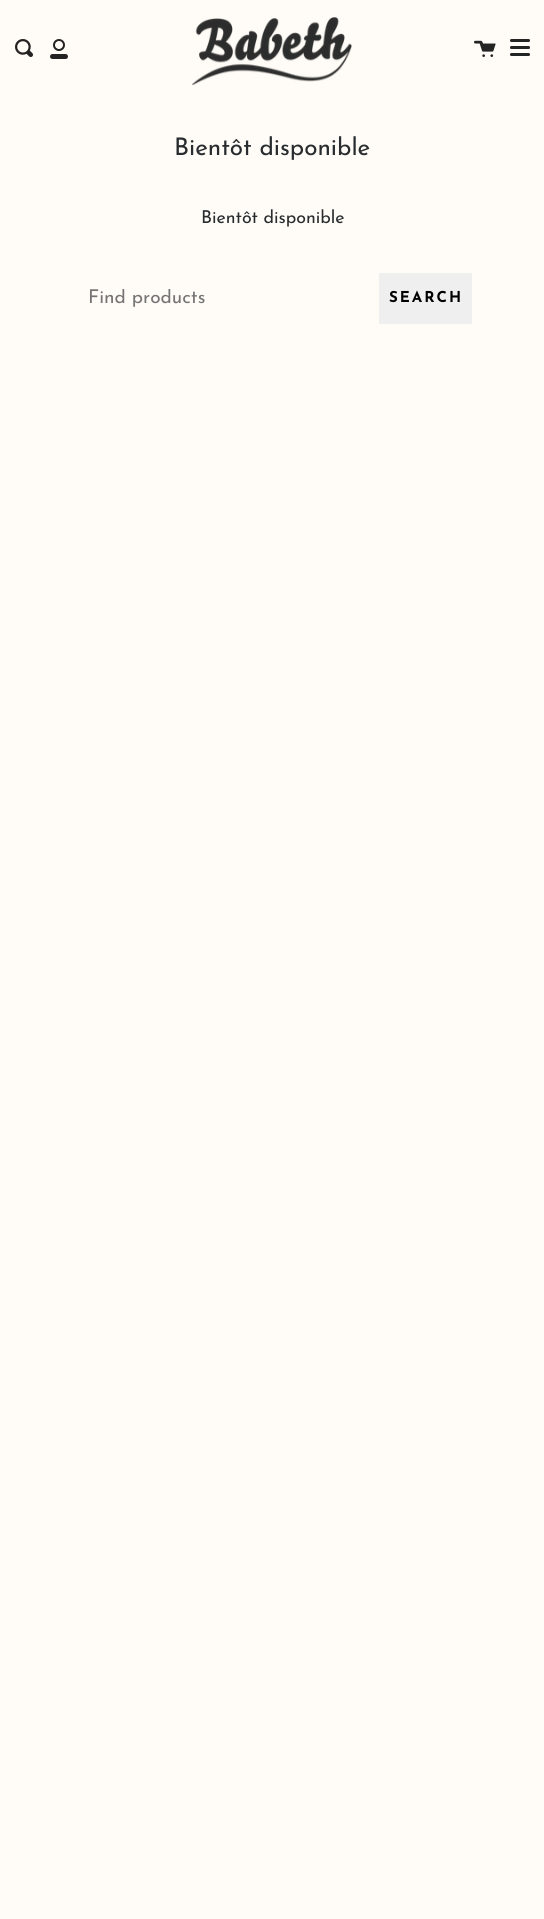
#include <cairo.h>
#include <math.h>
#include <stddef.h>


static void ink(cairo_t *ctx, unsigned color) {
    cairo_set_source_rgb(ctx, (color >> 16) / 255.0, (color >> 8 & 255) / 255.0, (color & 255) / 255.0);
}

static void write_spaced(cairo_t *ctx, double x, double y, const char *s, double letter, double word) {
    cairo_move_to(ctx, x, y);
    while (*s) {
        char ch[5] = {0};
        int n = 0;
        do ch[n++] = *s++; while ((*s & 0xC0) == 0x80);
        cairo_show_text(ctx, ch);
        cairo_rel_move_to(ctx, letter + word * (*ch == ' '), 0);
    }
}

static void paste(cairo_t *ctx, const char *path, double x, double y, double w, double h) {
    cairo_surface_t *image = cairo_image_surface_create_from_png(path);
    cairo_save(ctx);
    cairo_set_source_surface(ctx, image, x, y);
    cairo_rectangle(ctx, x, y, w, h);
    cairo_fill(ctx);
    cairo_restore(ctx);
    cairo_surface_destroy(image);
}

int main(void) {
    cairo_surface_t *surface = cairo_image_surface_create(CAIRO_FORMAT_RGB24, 544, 1919);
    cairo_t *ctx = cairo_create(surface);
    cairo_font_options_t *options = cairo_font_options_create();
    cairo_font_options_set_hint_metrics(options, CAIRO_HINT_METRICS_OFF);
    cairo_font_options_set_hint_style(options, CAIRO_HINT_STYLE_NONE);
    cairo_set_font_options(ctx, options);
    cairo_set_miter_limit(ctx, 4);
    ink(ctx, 0xFFFCF7);
    cairo_paint(ctx);
    paste(ctx, "media/1.png", 192, 17, 160, 68);
    paste(ctx, "media/2.png", 15, 39, 18, 18);
    paste(ctx, "media/3.png", 50, 39, 18, 20);
    paste(ctx, "media/4.png", 474, 40, 22, 17);
    ink(ctx, 0x232323);
    cairo_new_path(ctx);
    cairo_move_to(ctx, 511.5, 39);
    cairo_line_to(ctx, 527, 39);
    cairo_line_to(ctx, 527, 42);
    cairo_line_to(ctx, 511.5, 42);
    cairo_curve_to(ctx, 510.5, 42, 510, 41.5, 510, 40.5);
    cairo_curve_to(ctx, 510, 39.5, 510.5, 39, 511.5, 39);
    cairo_close_path(ctx);
    cairo_fill(ctx);
    cairo_new_path(ctx);
    cairo_move_to(ctx, 513, 39);
    cairo_line_to(ctx, 528.5, 39);
    cairo_curve_to(ctx, 529.5, 39, 530, 39.5, 530, 40.5);
    cairo_curve_to(ctx, 530, 41.5, 529.5, 42, 528.5, 42);
    cairo_line_to(ctx, 513, 42);
    cairo_close_path(ctx);
    cairo_fill(ctx);
    cairo_new_path(ctx);
    cairo_move_to(ctx, 511.5, 46);
    cairo_line_to(ctx, 527, 46);
    cairo_line_to(ctx, 527, 49);
    cairo_line_to(ctx, 511.5, 49);
    cairo_curve_to(ctx, 510.5, 49, 510, 48.5, 510, 47.5);
    cairo_curve_to(ctx, 510, 46.5, 510.5, 46, 511.5, 46);
    cairo_close_path(ctx);
    cairo_fill(ctx);
    cairo_new_path(ctx);
    cairo_move_to(ctx, 513, 46);
    cairo_line_to(ctx, 528.5, 46);
    cairo_curve_to(ctx, 529.5, 46, 530, 46.5, 530, 47.5);
    cairo_curve_to(ctx, 530, 48.5, 529.5, 49, 528.5, 49);
    cairo_line_to(ctx, 513, 49);
    cairo_close_path(ctx);
    cairo_fill(ctx);
    cairo_new_path(ctx);
    cairo_move_to(ctx, 511.5, 53);
    cairo_line_to(ctx, 527, 53);
    cairo_line_to(ctx, 527, 56);
    cairo_line_to(ctx, 511.5, 56);
    cairo_curve_to(ctx, 510.5, 56, 510, 55.5, 510, 54.5);
    cairo_curve_to(ctx, 510, 53.5, 510.5, 53, 511.5, 53);
    cairo_close_path(ctx);
    cairo_fill(ctx);
    cairo_new_path(ctx);
    cairo_move_to(ctx, 513, 53);
    cairo_line_to(ctx, 528.5, 53);
    cairo_curve_to(ctx, 529.5, 53, 530, 53.5, 530, 54.5);
    cairo_curve_to(ctx, 530, 55.5, 529.5, 56, 528.5, 56);
    cairo_line_to(ctx, 513, 56);
    cairo_close_path(ctx);
    cairo_fill(ctx);
    cairo_select_font_face(ctx, "Josefin Sans", CAIRO_FONT_SLANT_NORMAL, CAIRO_FONT_WEIGHT_NORMAL);
    cairo_set_font_size(ctx, 24.25);
    ink(ctx, 0x282C2E);
    cairo_move_to(ctx, 174, 155);
    cairo_show_text(ctx, "Bientôt disponible");
    cairo_set_font_size(ctx, 17.75);
    cairo_move_to(ctx, 201, 223);
    cairo_show_text(ctx, "Bientôt disponible");
    cairo_save(ctx);
    cairo_rectangle(ctx, 88, 289, 368, 19);
    cairo_clip(ctx);
    cairo_set_font_size(ctx, 19);
    ink(ctx, 0x757575);
    cairo_move_to(ctx, 88, 303);
    cairo_show_text(ctx, "Find products");
    cairo_restore(ctx);
    ink(ctx, 0xEFEFEF);
    cairo_rectangle(ctx, 379, 273, 93, 51);
    cairo_fill(ctx);
    cairo_select_font_face(ctx, "Josefin Sans", CAIRO_FONT_SLANT_NORMAL, CAIRO_FONT_WEIGHT_BOLD);
    cairo_set_font_size(ctx, 15);
    ink(ctx, 0x000000);
    write_spaced(ctx, 389, 302, "SEARCH", 2, 0);
    cairo_surface_write_to_png(surface, "image.png");
    cairo_font_options_destroy(options);
    cairo_destroy(ctx);
    cairo_surface_destroy(surface);
    return 0;
}
